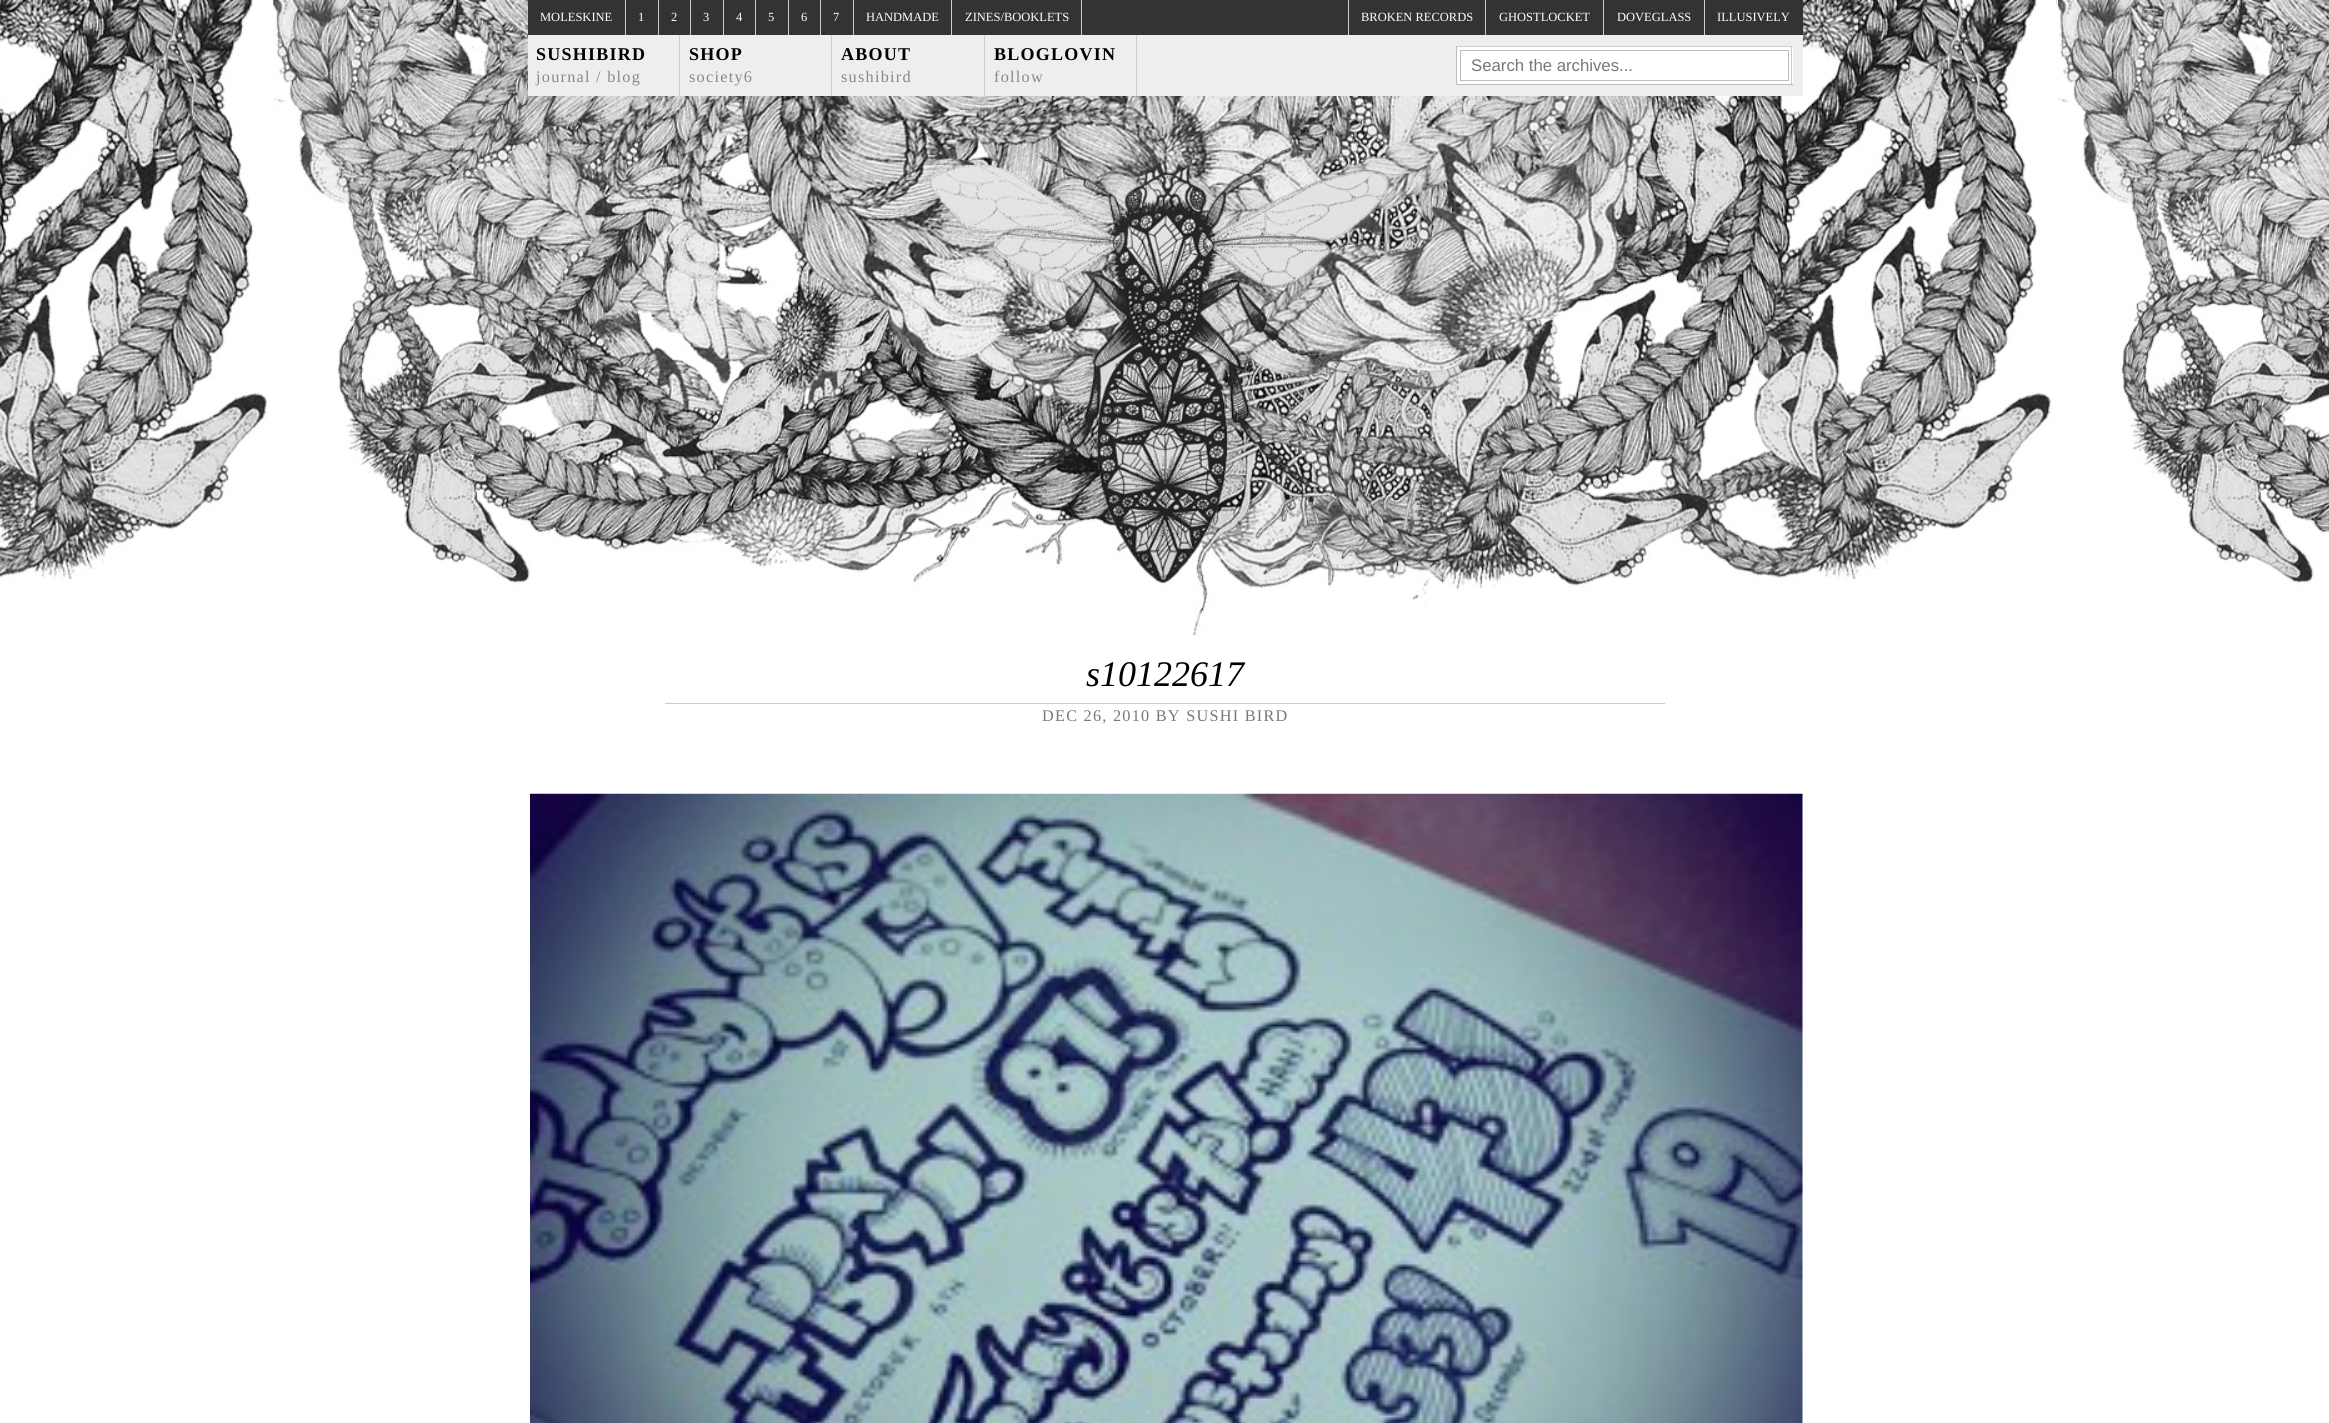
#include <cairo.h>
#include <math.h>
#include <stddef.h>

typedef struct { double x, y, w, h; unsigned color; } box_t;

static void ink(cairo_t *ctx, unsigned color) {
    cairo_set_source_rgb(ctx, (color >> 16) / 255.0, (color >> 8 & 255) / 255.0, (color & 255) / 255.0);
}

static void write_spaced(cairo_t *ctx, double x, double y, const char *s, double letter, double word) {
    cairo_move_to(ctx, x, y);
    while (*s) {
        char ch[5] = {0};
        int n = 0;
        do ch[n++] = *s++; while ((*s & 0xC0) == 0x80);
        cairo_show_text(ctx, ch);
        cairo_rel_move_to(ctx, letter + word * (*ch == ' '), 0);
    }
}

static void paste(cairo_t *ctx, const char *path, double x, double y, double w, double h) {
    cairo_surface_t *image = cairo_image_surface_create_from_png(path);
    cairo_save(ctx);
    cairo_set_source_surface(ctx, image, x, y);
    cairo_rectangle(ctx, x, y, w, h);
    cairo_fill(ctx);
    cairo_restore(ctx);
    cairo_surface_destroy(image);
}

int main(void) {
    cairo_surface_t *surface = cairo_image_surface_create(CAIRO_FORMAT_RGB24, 2329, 1423);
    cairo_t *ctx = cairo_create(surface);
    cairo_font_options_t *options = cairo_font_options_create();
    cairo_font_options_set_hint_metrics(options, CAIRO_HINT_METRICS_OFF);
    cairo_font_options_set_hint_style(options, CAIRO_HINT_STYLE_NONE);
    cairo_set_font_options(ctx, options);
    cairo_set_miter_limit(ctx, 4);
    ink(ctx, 0xFFFFFF);
    cairo_paint(ctx);
    paste(ctx, "media/1.png", 0, 0, 2329, 636);
    ink(ctx, 0x333333);
    cairo_rectangle(ctx, 528, 0, 1275, 35);
    cairo_fill(ctx);
    ink(ctx, 0xCCCCCC);
    cairo_rectangle(ctx, 625, 0, 1, 35);
    cairo_fill(ctx);
    cairo_select_font_face(ctx, "Liberation Serif", CAIRO_FONT_SLANT_NORMAL, CAIRO_FONT_WEIGHT_NORMAL);
    cairo_set_font_size(ctx, 12.5);
    ink(ctx, 0xFFFFFF);
    cairo_move_to(ctx, 540, 21);
    cairo_show_text(ctx, "MOLESKINE");
    ink(ctx, 0xCCCCCC);
    cairo_rectangle(ctx, 658, 0, 1, 35);
    cairo_fill(ctx);
    ink(ctx, 0xFFFFFF);
    cairo_move_to(ctx, 638, 21);
    cairo_show_text(ctx, "1");
    ink(ctx, 0xCCCCCC);
    cairo_rectangle(ctx, 690, 0, 1, 35);
    cairo_fill(ctx);
    ink(ctx, 0xFFFFFF);
    cairo_move_to(ctx, 671, 21);
    cairo_show_text(ctx, "2");
    ink(ctx, 0xCCCCCC);
    cairo_rectangle(ctx, 723, 0, 1, 35);
    cairo_fill(ctx);
    ink(ctx, 0xFFFFFF);
    cairo_move_to(ctx, 703, 21);
    cairo_show_text(ctx, "3");
    ink(ctx, 0xCCCCCC);
    cairo_rectangle(ctx, 755, 0, 1, 35);
    cairo_fill(ctx);
    ink(ctx, 0xFFFFFF);
    cairo_move_to(ctx, 736, 21);
    cairo_show_text(ctx, "4");
    ink(ctx, 0xCCCCCC);
    cairo_rectangle(ctx, 788, 0, 1, 35);
    cairo_fill(ctx);
    ink(ctx, 0xFFFFFF);
    cairo_move_to(ctx, 768, 21);
    cairo_show_text(ctx, "5");
    ink(ctx, 0xCCCCCC);
    cairo_rectangle(ctx, 820, 0, 1, 35);
    cairo_fill(ctx);
    ink(ctx, 0xFFFFFF);
    cairo_move_to(ctx, 801, 21);
    cairo_show_text(ctx, "6");
    ink(ctx, 0xCCCCCC);
    cairo_rectangle(ctx, 853, 0, 1, 35);
    cairo_fill(ctx);
    ink(ctx, 0xFFFFFF);
    cairo_move_to(ctx, 833, 21);
    cairo_show_text(ctx, "7");
    ink(ctx, 0xCCCCCC);
    cairo_rectangle(ctx, 951, 0, 1, 35);
    cairo_fill(ctx);
    ink(ctx, 0xFFFFFF);
    cairo_move_to(ctx, 866, 21);
    cairo_show_text(ctx, "HANDMADE");
    ink(ctx, 0xCCCCCC);
    cairo_rectangle(ctx, 1081, 0, 1, 35);
    cairo_fill(ctx);
    ink(ctx, 0xFFFFFF);
    cairo_move_to(ctx, 965, 21);
    cairo_show_text(ctx, "ZINES/BOOKLETS");
    ink(ctx, 0xCCCCCC);
    cairo_rectangle(ctx, 1348, 0, 1, 35);
    cairo_fill(ctx);
    ink(ctx, 0xFFFFFF);
    cairo_move_to(ctx, 1361, 21);
    cairo_show_text(ctx, "BROKEN RECORDS");
    ink(ctx, 0xCCCCCC);
    cairo_rectangle(ctx, 1485, 0, 1, 35);
    cairo_fill(ctx);
    ink(ctx, 0xFFFFFF);
    cairo_move_to(ctx, 1499, 21);
    cairo_show_text(ctx, "GHOSTLOCKET");
    ink(ctx, 0xCCCCCC);
    cairo_rectangle(ctx, 1603, 0, 1, 35);
    cairo_fill(ctx);
    ink(ctx, 0xFFFFFF);
    cairo_move_to(ctx, 1617, 21);
    cairo_show_text(ctx, "DOVEGLASS");
    ink(ctx, 0xCCCCCC);
    cairo_rectangle(ctx, 1704, 0, 1, 35);
    cairo_fill(ctx);
    ink(ctx, 0xFFFFFF);
    cairo_move_to(ctx, 1717, 21);
    cairo_show_text(ctx, "ILLUSIVELY");
    ink(ctx, 0xEEEEEE);
    cairo_rectangle(ctx, 528, 35, 1275, 61);
    cairo_fill(ctx);
    ink(ctx, 0xCCCCCC);
    cairo_rectangle(ctx, 679, 35, 1, 61);
    cairo_fill(ctx);
    cairo_select_font_face(ctx, "Liberation Serif", CAIRO_FONT_SLANT_NORMAL, CAIRO_FONT_WEIGHT_BOLD);
    cairo_set_font_size(ctx, 18);
    ink(ctx, 0x000000);
    write_spaced(ctx, 536, 60, "SUSHIBIRD", 1.25, 0);
    cairo_select_font_face(ctx, "Liberation Serif", CAIRO_FONT_SLANT_NORMAL, CAIRO_FONT_WEIGHT_NORMAL);
    cairo_set_font_size(ctx, 16.25);
    ink(ctx, 0x888888);
    write_spaced(ctx, 536, 82, "journal / blog", 1.25, 0);
    ink(ctx, 0xCCCCCC);
    cairo_rectangle(ctx, 831, 35, 1, 61);
    cairo_fill(ctx);
    cairo_select_font_face(ctx, "Liberation Serif", CAIRO_FONT_SLANT_NORMAL, CAIRO_FONT_WEIGHT_BOLD);
    cairo_set_font_size(ctx, 18);
    ink(ctx, 0x000000);
    write_spaced(ctx, 689, 60, "SHOP", 1.25, 0);
    cairo_select_font_face(ctx, "Liberation Serif", CAIRO_FONT_SLANT_NORMAL, CAIRO_FONT_WEIGHT_NORMAL);
    cairo_set_font_size(ctx, 16.25);
    ink(ctx, 0x888888);
    write_spaced(ctx, 689, 82, "society6", 1.25, 0);
    ink(ctx, 0xCCCCCC);
    cairo_rectangle(ctx, 984, 35, 1, 61);
    cairo_fill(ctx);
    cairo_select_font_face(ctx, "Liberation Serif", CAIRO_FONT_SLANT_NORMAL, CAIRO_FONT_WEIGHT_BOLD);
    cairo_set_font_size(ctx, 18);
    ink(ctx, 0x000000);
    write_spaced(ctx, 841, 60, "ABOUT", 1.25, 0);
    cairo_select_font_face(ctx, "Liberation Serif", CAIRO_FONT_SLANT_NORMAL, CAIRO_FONT_WEIGHT_NORMAL);
    cairo_set_font_size(ctx, 16.25);
    ink(ctx, 0x888888);
    write_spaced(ctx, 841, 82, "sushibird", 1.25, 0);
    ink(ctx, 0xCCCCCC);
    cairo_rectangle(ctx, 1136, 35, 1, 61);
    cairo_fill(ctx);
    cairo_select_font_face(ctx, "Liberation Serif", CAIRO_FONT_SLANT_NORMAL, CAIRO_FONT_WEIGHT_BOLD);
    cairo_set_font_size(ctx, 18);
    ink(ctx, 0x000000);
    write_spaced(ctx, 994, 60, "BLOGLOVIN", 1.25, 0);
    cairo_select_font_face(ctx, "Liberation Serif", CAIRO_FONT_SLANT_NORMAL, CAIRO_FONT_WEIGHT_NORMAL);
    cairo_set_font_size(ctx, 16.25);
    ink(ctx, 0x888888);
    write_spaced(ctx, 994, 82, "follow", 1.25, 0);
    {
        static const box_t items[] = {
            {1457, 47, 336, 37, 0xFFFFFF},
            {1456, 46, 337, 1, 0xCCCCCC},
            {1791, 46, 1, 39, 0xCCCCCC},
            {1456, 84, 337, 1, 0xBBBBBB},
            {1456, 46, 1, 39, 0xBBBBBB},
        };
        for (size_t i = 0; i < sizeof items / sizeof *items; i++) {
            ink(ctx, items[i].color);
            cairo_rectangle(ctx, items[i].x, items[i].y, items[i].w, items[i].h);
            cairo_fill(ctx);
        }
    }
    cairo_rectangle(ctx, 1460.5, 50.5, 328, 30);
    cairo_set_line_width(ctx, 1);
    cairo_stroke(ctx);
    cairo_select_font_face(ctx, "Liberation Sans", CAIRO_FONT_SLANT_NORMAL, CAIRO_FONT_WEIGHT_NORMAL);
    cairo_set_font_size(ctx, 16.75);
    ink(ctx, 0x777777);
    cairo_move_to(ctx, 1471, 71);
    cairo_show_text(ctx, "Search the archives...");
    cairo_select_font_face(ctx, "Liberation Serif", CAIRO_FONT_SLANT_ITALIC, CAIRO_FONT_WEIGHT_NORMAL);
    cairo_set_font_size(ctx, 36);
    ink(ctx, 0x000000);
    cairo_move_to(ctx, 1086, 686);
    cairo_show_text(ctx, "s10122617");
    ink(ctx, 0xCCCCCC);
    cairo_rectangle(ctx, 665, 703, 1000, 1);
    cairo_fill(ctx);
    cairo_select_font_face(ctx, "Liberation Serif", CAIRO_FONT_SLANT_NORMAL, CAIRO_FONT_WEIGHT_NORMAL);
    cairo_set_font_size(ctx, 16.25);
    ink(ctx, 0x777777);
    write_spaced(ctx, 1042, 721, "DEC 26, 2010 BY SUSHI BIRD", 1.25, 0);
    paste(ctx, "media/2.png", 530, 793, 1273, 630);
    cairo_surface_write_to_png(surface, "image.png");
    cairo_font_options_destroy(options);
    cairo_destroy(ctx);
    cairo_surface_destroy(surface);
    return 0;
}
